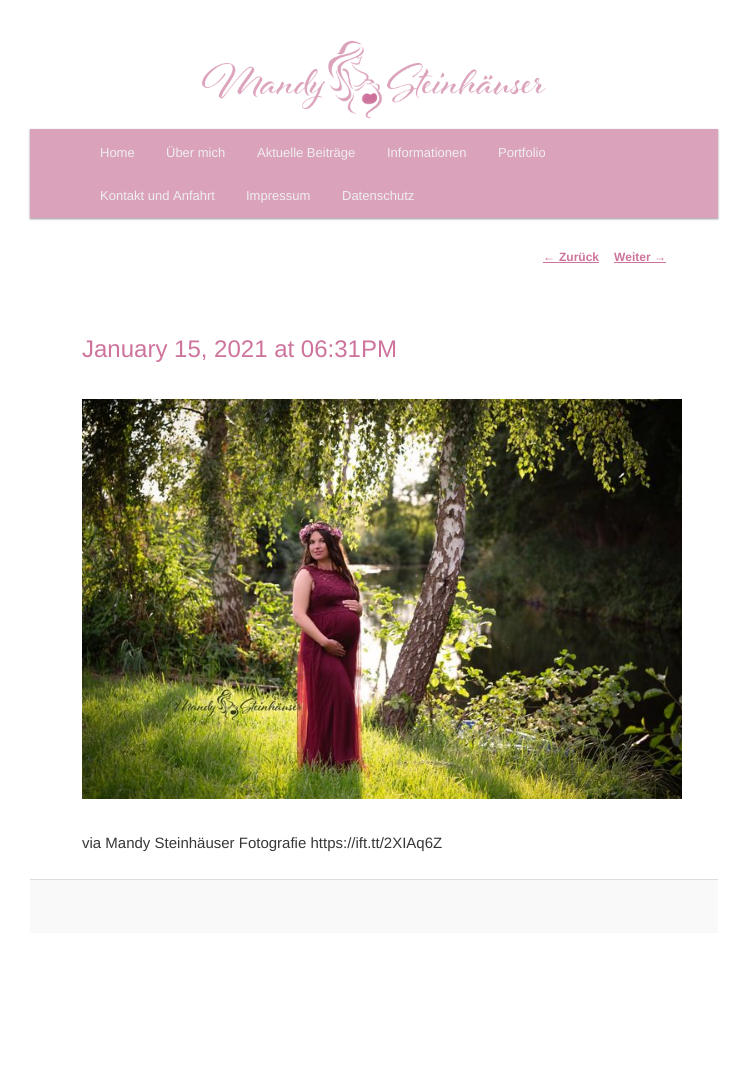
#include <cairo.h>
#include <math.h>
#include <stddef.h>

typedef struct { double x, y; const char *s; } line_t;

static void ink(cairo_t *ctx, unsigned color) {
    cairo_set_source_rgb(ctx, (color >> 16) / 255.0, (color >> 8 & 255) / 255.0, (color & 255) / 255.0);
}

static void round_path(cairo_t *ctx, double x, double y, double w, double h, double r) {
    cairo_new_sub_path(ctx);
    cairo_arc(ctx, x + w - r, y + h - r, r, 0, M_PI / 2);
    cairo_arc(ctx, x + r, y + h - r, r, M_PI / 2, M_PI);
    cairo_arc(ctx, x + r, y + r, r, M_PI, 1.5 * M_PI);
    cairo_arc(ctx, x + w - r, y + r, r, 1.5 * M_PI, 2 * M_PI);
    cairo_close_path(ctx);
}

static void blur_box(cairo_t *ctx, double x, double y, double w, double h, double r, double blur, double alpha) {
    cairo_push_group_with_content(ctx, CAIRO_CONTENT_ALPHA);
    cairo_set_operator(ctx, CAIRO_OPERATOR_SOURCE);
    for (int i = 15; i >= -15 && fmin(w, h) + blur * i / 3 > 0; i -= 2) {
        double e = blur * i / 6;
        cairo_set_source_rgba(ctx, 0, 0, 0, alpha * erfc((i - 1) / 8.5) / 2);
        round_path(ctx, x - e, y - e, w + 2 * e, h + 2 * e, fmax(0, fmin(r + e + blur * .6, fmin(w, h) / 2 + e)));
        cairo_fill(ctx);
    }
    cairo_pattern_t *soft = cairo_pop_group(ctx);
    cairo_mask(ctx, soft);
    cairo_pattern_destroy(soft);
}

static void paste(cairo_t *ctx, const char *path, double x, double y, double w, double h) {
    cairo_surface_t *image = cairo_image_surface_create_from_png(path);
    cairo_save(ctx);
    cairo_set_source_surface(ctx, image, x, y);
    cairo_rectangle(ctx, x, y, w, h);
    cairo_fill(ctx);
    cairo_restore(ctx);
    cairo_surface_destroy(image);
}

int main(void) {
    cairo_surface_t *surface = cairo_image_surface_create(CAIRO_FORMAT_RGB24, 748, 1081);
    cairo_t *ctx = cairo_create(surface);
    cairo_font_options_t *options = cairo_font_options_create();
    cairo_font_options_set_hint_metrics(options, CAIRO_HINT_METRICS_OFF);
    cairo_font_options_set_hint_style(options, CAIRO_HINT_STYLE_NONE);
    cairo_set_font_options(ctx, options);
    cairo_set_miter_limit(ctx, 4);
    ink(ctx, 0xFFFFFF);
    cairo_paint(ctx);
    paste(ctx, "media/1.png", 202, 40, 344, 79);
    ink(ctx, 0x000000);
    blur_box(ctx, 30, 130, 688, 89, 0, 1, 0.4);
    ink(ctx, 0xDBA2BC);
    cairo_rectangle(ctx, 30, 129, 688, 89);
    cairo_fill(ctx);
    cairo_select_font_face(ctx, "Liberation Sans", CAIRO_FONT_SLANT_NORMAL, CAIRO_FONT_WEIGHT_NORMAL);
    cairo_set_font_size(ctx, 13);
    ink(ctx, 0xEEEEEE);
    {
        static const line_t items[] = {
            {100, 157, "Home"},
            {166, 157, "Über mich"},
            {257, 157, "Aktuelle Beiträge"},
            {387, 157, "Informationen"},
            {498, 157, "Portfolio"},
            {100, 200, "Kontakt und Anfahrt"},
            {246, 200, "Impressum"},
            {342, 200, "Datenschutz"},
        };
        for (size_t i = 0; i < sizeof items / sizeof *items; i++) {
            cairo_move_to(ctx, items[i].x, items[i].y);
            cairo_show_text(ctx, items[i].s);
        }
    }
    cairo_set_font_size(ctx, 12);
    ink(ctx, 0xCE739C);
    cairo_move_to(ctx, 543, 261);
    cairo_show_text(ctx, "←");
    cairo_rectangle(ctx, 543, 262, 56, 1);
    cairo_fill(ctx);
    cairo_select_font_face(ctx, "Liberation Sans", CAIRO_FONT_SLANT_NORMAL, CAIRO_FONT_WEIGHT_BOLD);
    cairo_move_to(ctx, 559, 261);
    cairo_show_text(ctx, "Zurück");
    cairo_move_to(ctx, 614, 261);
    cairo_show_text(ctx, "Weiter");
    cairo_select_font_face(ctx, "Liberation Sans", CAIRO_FONT_SLANT_NORMAL, CAIRO_FONT_WEIGHT_NORMAL);
    cairo_move_to(ctx, 654, 261);
    cairo_show_text(ctx, "→");
    cairo_rectangle(ctx, 614, 262, 52, 1);
    cairo_fill(ctx);
    cairo_set_font_size(ctx, 24);
    cairo_move_to(ctx, 82, 357);
    cairo_show_text(ctx, "January 15, 2021 at 06:31PM");
    paste(ctx, "media/2.png", 82, 399, 600, 400);
    cairo_set_font_size(ctx, 15);
    ink(ctx, 0x373737);
    cairo_move_to(ctx, 82, 848);
    cairo_show_text(ctx, "via Mandy Steinhäuser Fotografie https://ift.tt/2XIAq6Z");
    ink(ctx, 0xF9F9F9);
    cairo_rectangle(ctx, 30, 880, 688, 53);
    cairo_fill(ctx);
    ink(ctx, 0xDDDDDD);
    cairo_rectangle(ctx, 30, 879, 688, 1);
    cairo_fill(ctx);
    cairo_surface_write_to_png(surface, "image.png");
    cairo_font_options_destroy(options);
    cairo_destroy(ctx);
    cairo_surface_destroy(surface);
    return 0;
}
